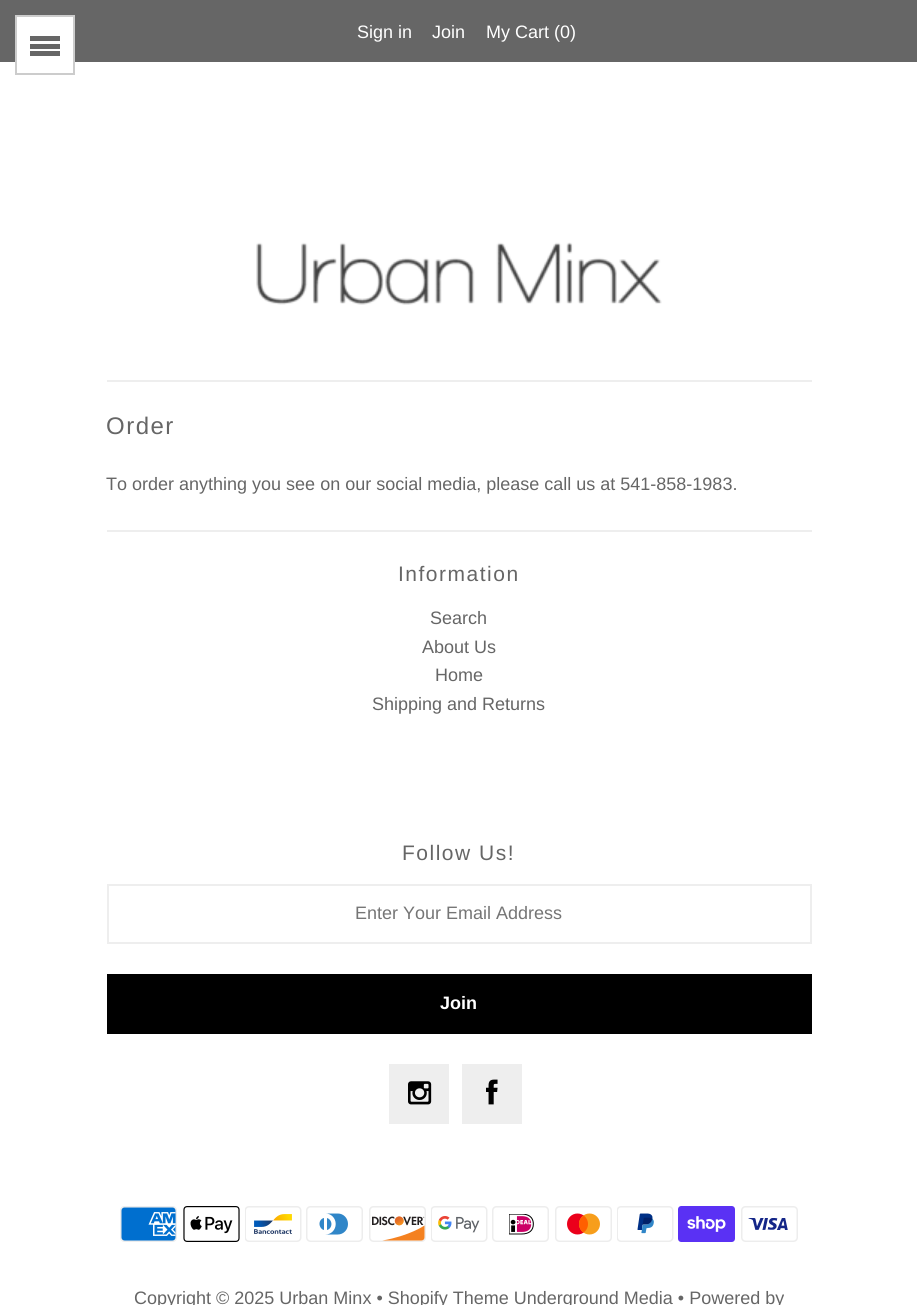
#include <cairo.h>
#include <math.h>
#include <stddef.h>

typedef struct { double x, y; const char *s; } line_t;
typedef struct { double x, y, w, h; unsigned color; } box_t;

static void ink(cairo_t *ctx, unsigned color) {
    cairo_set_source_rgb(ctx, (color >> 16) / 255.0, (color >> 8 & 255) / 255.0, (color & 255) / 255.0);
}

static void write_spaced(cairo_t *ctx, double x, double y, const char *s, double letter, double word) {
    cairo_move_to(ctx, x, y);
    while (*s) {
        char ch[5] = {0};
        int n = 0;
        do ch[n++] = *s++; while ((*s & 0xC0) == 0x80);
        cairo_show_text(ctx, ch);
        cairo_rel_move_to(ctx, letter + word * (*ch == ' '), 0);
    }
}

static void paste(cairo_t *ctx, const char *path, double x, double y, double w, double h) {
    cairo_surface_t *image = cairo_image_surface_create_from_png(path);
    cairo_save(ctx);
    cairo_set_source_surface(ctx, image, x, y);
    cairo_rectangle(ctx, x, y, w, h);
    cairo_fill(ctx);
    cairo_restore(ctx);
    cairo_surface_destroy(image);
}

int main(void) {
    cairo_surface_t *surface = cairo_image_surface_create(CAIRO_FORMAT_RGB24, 917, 1305);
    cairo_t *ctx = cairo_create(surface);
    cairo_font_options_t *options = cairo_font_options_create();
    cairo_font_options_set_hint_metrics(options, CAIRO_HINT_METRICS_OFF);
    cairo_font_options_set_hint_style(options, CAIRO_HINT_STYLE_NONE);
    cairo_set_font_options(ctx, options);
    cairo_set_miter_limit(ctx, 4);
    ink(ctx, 0xFFFFFF);
    cairo_paint(ctx);
    ink(ctx, 0x666666);
    cairo_rectangle(ctx, 0, 0, 917, 62);
    cairo_fill(ctx);
    ink(ctx, 0xFFFFFF);
    cairo_rectangle(ctx, 17, 17, 56, 45);
    cairo_fill(ctx);
    cairo_rectangle(ctx, 16, 16, 58, 58);
    ink(ctx, 0xCCCCCC);
    cairo_stroke(ctx);
    {
        static const box_t items[] = {
            {30, 36, 30, 5, 0x666666},
            {30, 51, 30, 5, 0x666666},
            {30, 44, 30, 5, 0x666666},
        };
        for (size_t i = 0; i < sizeof items / sizeof *items; i++) {
            ink(ctx, items[i].color);
            cairo_rectangle(ctx, items[i].x, items[i].y, items[i].w, items[i].h);
            cairo_fill(ctx);
        }
    }
    cairo_select_font_face(ctx, "Liberation Sans", CAIRO_FONT_SLANT_NORMAL, CAIRO_FONT_WEIGHT_NORMAL);
    cairo_set_font_size(ctx, 18);
    ink(ctx, 0xFFFFFF);
    {
        static const line_t items[] = {
            {357, 38, "Sign in"},
            {432, 38, "Join"},
            {486, 38, "My Cart (0)"},
        };
        for (size_t i = 0; i < sizeof items / sizeof *items; i++) {
            cairo_move_to(ctx, items[i].x, items[i].y);
            cairo_show_text(ctx, items[i].s);
        }
    }
    paste(ctx, "media/1.png", 256, 242, 406, 63);
    ink(ctx, 0xEEEEEE);
    cairo_rectangle(ctx, 107, 380, 705, 2);
    cairo_fill(ctx);
    cairo_set_font_size(ctx, 24);
    ink(ctx, 0x666666);
    write_spaced(ctx, 106, 434, "Order", 1.5, 0);
    cairo_set_font_size(ctx, 18);
    cairo_move_to(ctx, 106, 490);
    cairo_show_text(ctx, "To order anything you see on our social media, please call us at 541-858-1983.");
    ink(ctx, 0xEEEEEE);
    cairo_rectangle(ctx, 107, 530, 705, 2);
    cairo_fill(ctx);
    cairo_set_font_size(ctx, 21);
    ink(ctx, 0x666666);
    write_spaced(ctx, 398, 581, "Information", 1.5, 0);
    cairo_set_font_size(ctx, 18);
    {
        static const line_t items[] = {
            {430, 624, "Search"},
            {422, 653, "About Us"},
            {435, 681, "Home"},
            {372, 710, "Shipping and Returns"},
        };
        for (size_t i = 0; i < sizeof items / sizeof *items; i++) {
            cairo_move_to(ctx, items[i].x, items[i].y);
            cairo_show_text(ctx, items[i].s);
        }
    }
    cairo_set_font_size(ctx, 21);
    write_spaced(ctx, 402, 860, "Follow Us!", 1.5, 0);
    cairo_rectangle(ctx, 108, 885, 703, 58);
    ink(ctx, 0xEEEEEE);
    cairo_stroke(ctx);
    cairo_set_font_size(ctx, 18);
    ink(ctx, 0x757575);
    cairo_move_to(ctx, 355, 919);
    cairo_show_text(ctx, "Enter Your Email Address");
    ink(ctx, 0x000000);
    cairo_rectangle(ctx, 107, 974, 705, 60);
    cairo_fill(ctx);
    cairo_select_font_face(ctx, "Liberation Sans", CAIRO_FONT_SLANT_NORMAL, CAIRO_FONT_WEIGHT_BOLD);
    ink(ctx, 0xFFFFFF);
    cairo_move_to(ctx, 440, 1009);
    cairo_show_text(ctx, "Join");
    ink(ctx, 0xEEEEEE);
    cairo_rectangle(ctx, 389, 1064, 60, 60);
    cairo_fill(ctx);
    paste(ctx, "media/2.png", 408, 1081, 24, 24);
    cairo_rectangle(ctx, 462, 1064, 60, 60);
    cairo_fill(ctx);
    paste(ctx, "media/3.png", 486, 1079, 12, 26);
    paste(ctx, "media/4.png", 120, 1206, 57, 36);
    paste(ctx, "media/5.png", 183, 1206, 57, 36);
    paste(ctx, "media/6.png", 245, 1206, 57, 36);
    paste(ctx, "media/7.png", 306, 1206, 57, 36);
    paste(ctx, "media/8.png", 369, 1206, 57, 36);
    paste(ctx, "media/9.png", 431, 1206, 57, 36);
    paste(ctx, "media/10.png", 492, 1206, 57, 36);
    paste(ctx, "media/11.png", 555, 1206, 57, 36);
    paste(ctx, "media/12.png", 617, 1206, 57, 36);
    paste(ctx, "media/13.png", 678, 1206, 57, 36);
    paste(ctx, "media/14.png", 741, 1206, 57, 36);
    cairo_select_font_face(ctx, "Liberation Sans", CAIRO_FONT_SLANT_NORMAL, CAIRO_FONT_WEIGHT_NORMAL);
    ink(ctx, 0x666666);
    cairo_move_to(ctx, 134, 1304);
    cairo_show_text(ctx, "Copyright © 2025 Urban Minx • Shopify Theme Underground Media • Powered by");
    cairo_surface_write_to_png(surface, "image.png");
    cairo_font_options_destroy(options);
    cairo_destroy(ctx);
    cairo_surface_destroy(surface);
    return 0;
}
